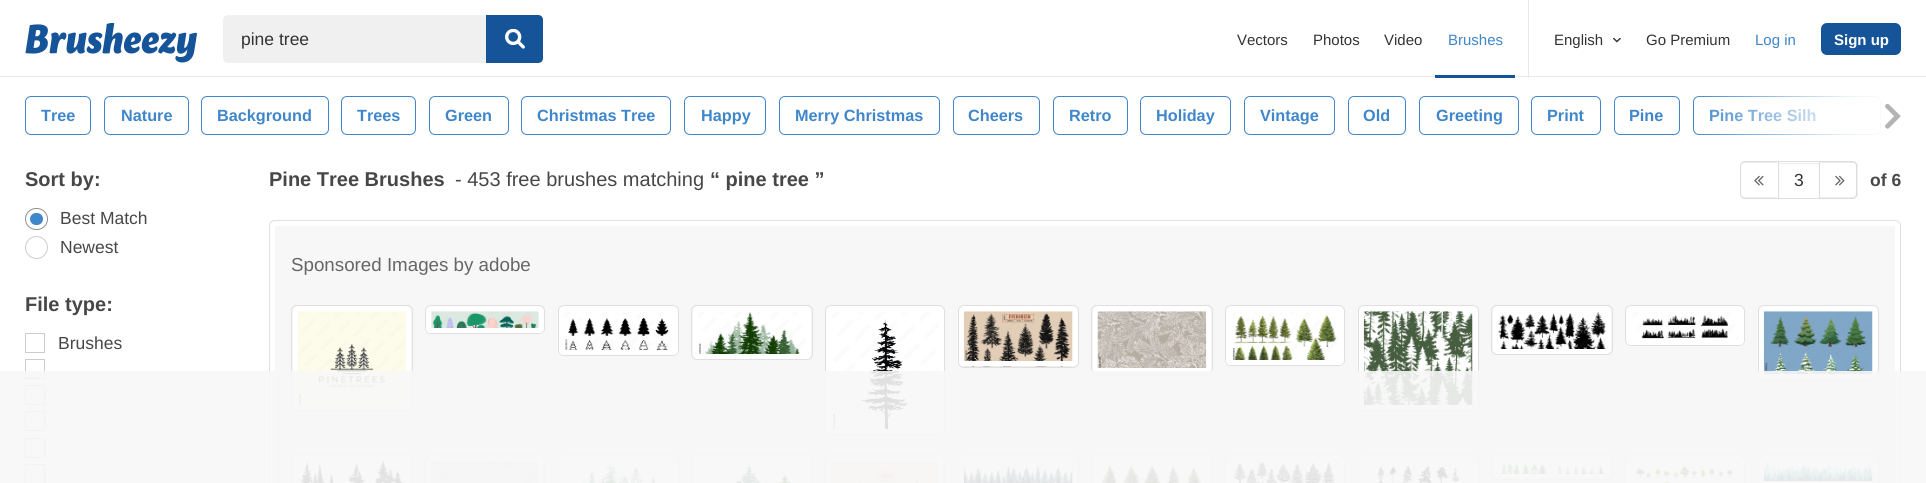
#include <cairo.h>
#include <math.h>
#include <stddef.h>

typedef struct { double x, y; const char *s; } line_t;

static void ink(cairo_t *ctx, unsigned color) {
    cairo_set_source_rgb(ctx, (color >> 16) / 255.0, (color >> 8 & 255) / 255.0, (color & 255) / 255.0);
}

static void round_path(cairo_t *ctx, double x, double y, double w, double h, double r) {
    cairo_new_sub_path(ctx);
    cairo_arc(ctx, x + w - r, y + h - r, r, 0, M_PI / 2);
    cairo_arc(ctx, x + r, y + h - r, r, M_PI / 2, M_PI);
    cairo_arc(ctx, x + r, y + r, r, M_PI, 1.5 * M_PI);
    cairo_arc(ctx, x + w - r, y + r, r, 1.5 * M_PI, 2 * M_PI);
    cairo_close_path(ctx);
}

static void paste(cairo_t *ctx, const char *path, double x, double y, double w, double h) {
    cairo_surface_t *image = cairo_image_surface_create_from_png(path);
    cairo_save(ctx);
    cairo_set_source_surface(ctx, image, x, y);
    cairo_rectangle(ctx, x, y, w, h);
    cairo_fill(ctx);
    cairo_restore(ctx);
    cairo_surface_destroy(image);
}

int main(void) {
    cairo_surface_t *surface = cairo_image_surface_create(CAIRO_FORMAT_RGB24, 1926, 483);
    cairo_t *ctx = cairo_create(surface);
    cairo_font_options_t *options = cairo_font_options_create();
    cairo_font_options_set_hint_metrics(options, CAIRO_HINT_METRICS_OFF);
    cairo_font_options_set_hint_style(options, CAIRO_HINT_STYLE_NONE);
    cairo_set_font_options(ctx, options);
    cairo_set_miter_limit(ctx, 4);
    cairo_pattern_t *gradient;
    ink(ctx, 0xFFFFFF);
    cairo_paint(ctx);
    ink(ctx, 0xE8E8E8);
    cairo_rectangle(ctx, 0, 76, 1926, 1);
    cairo_fill(ctx);
    paste(ctx, "media/1.png", 25, 23, 172, 40);
    ink(ctx, 0xF0F0F0);
    round_path(ctx, 223, 15, 320, 48, 5);
    cairo_fill(ctx);
    cairo_select_font_face(ctx, "Liberation Sans", CAIRO_FONT_SLANT_NORMAL, CAIRO_FONT_WEIGHT_NORMAL);
    cairo_set_font_size(ctx, 17.5);
    ink(ctx, 0x333333);
    cairo_move_to(ctx, 241, 45);
    cairo_show_text(ctx, "pine tree");
    ink(ctx, 0x155499);
    cairo_new_path(ctx);
    cairo_move_to(ctx, 486, 15);
    cairo_line_to(ctx, 538, 15);
    cairo_curve_to(ctx, 541, 15, 543, 17, 543, 20);
    cairo_line_to(ctx, 543, 58);
    cairo_curve_to(ctx, 543, 61, 541, 63, 538, 63);
    cairo_line_to(ctx, 486, 63);
    cairo_close_path(ctx);
    cairo_fill(ctx);
    paste(ctx, "media/2.png", 505, 29, 20, 20);
    cairo_set_font_size(ctx, 15);
    ink(ctx, 0x333333);
    {
        static const line_t items[] = {
            {1237, 45, "Vectors"},
            {1313, 45, "Photos"},
            {1384, 45, "Video"},
        };
        for (size_t i = 0; i < sizeof items / sizeof *items; i++) {
            cairo_move_to(ctx, items[i].x, items[i].y);
            cairo_show_text(ctx, items[i].s);
        }
    }
    ink(ctx, 0x3F86CA);
    cairo_move_to(ctx, 1448, 45);
    cairo_show_text(ctx, "Brushes");
    ink(ctx, 0x155499);
    cairo_rectangle(ctx, 1435, 75, 80, 3);
    cairo_fill(ctx);
    ink(ctx, 0xE8E8E8);
    cairo_rectangle(ctx, 1528, 0, 1, 78);
    cairo_fill(ctx);
    ink(ctx, 0x333333);
    cairo_move_to(ctx, 1554, 45);
    cairo_show_text(ctx, "English");
    paste(ctx, "media/3.png", 1613, 38, 8, 5);
    cairo_move_to(ctx, 1646, 45);
    cairo_show_text(ctx, "Go Premium");
    ink(ctx, 0x3F86CA);
    cairo_move_to(ctx, 1755, 45);
    cairo_show_text(ctx, "Log in");
    ink(ctx, 0x155499);
    round_path(ctx, 1821, 23, 80, 32, 6);
    cairo_fill(ctx);
    cairo_select_font_face(ctx, "Liberation Sans", CAIRO_FONT_SLANT_NORMAL, CAIRO_FONT_WEIGHT_BOLD);
    ink(ctx, 0xFFFFFF);
    cairo_move_to(ctx, 1834, 45);
    cairo_show_text(ctx, "Sign up");
    round_path(ctx, 1693.5, 96.5, 187, 38, 5.5);
    ink(ctx, 0x3F86CA);
    cairo_set_line_width(ctx, 1);
    cairo_stroke(ctx);
    cairo_set_font_size(ctx, 16.25);
    cairo_move_to(ctx, 1709, 121);
    cairo_show_text(ctx, "Pine Tree Silh");
    cairo_save(ctx);
    cairo_rectangle(ctx, 25, 96, 1876, 55);
    cairo_clip(ctx);
    round_path(ctx, 1894.5, 96.5, 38, 38, 5.5);
    cairo_stroke(ctx);
    cairo_restore(ctx);
    gradient = cairo_pattern_create_linear(1689, 116, 1901, 116);
    cairo_pattern_add_color_stop_rgba(gradient, 0, 1, 1, 1, 0);
    cairo_pattern_add_color_stop_rgba(gradient, 0.75, 1, 1, 1, 0.9);
    cairo_pattern_add_color_stop_rgba(gradient, 1, 1, 1, 1, 1);
    cairo_set_source(ctx, gradient);
    cairo_pattern_destroy(gradient);
    cairo_rectangle(ctx, 1693, 96, 208, 39);
    cairo_fill(ctx);
    paste(ctx, "media/4.png", 1885, 104, 16, 25);
    round_path(ctx, 25.5, 96.5, 65, 38, 5.5);
    ink(ctx, 0x3F86CA);
    cairo_stroke(ctx);
    cairo_move_to(ctx, 41, 121);
    cairo_show_text(ctx, "Tree");
    round_path(ctx, 104.5, 96.5, 84, 38, 5.5);
    cairo_stroke(ctx);
    cairo_move_to(ctx, 121, 121);
    cairo_show_text(ctx, "Nature");
    round_path(ctx, 201.5, 96.5, 127, 38, 5.5);
    cairo_stroke(ctx);
    cairo_move_to(ctx, 217, 121);
    cairo_show_text(ctx, "Background");
    round_path(ctx, 341.5, 96.5, 74, 38, 5.5);
    cairo_stroke(ctx);
    cairo_move_to(ctx, 357, 121);
    cairo_show_text(ctx, "Trees");
    round_path(ctx, 429.5, 96.5, 79, 38, 5.5);
    cairo_stroke(ctx);
    cairo_move_to(ctx, 445, 121);
    cairo_show_text(ctx, "Green");
    round_path(ctx, 521.5, 96.5, 149, 38, 5.5);
    cairo_stroke(ctx);
    cairo_move_to(ctx, 537, 121);
    cairo_show_text(ctx, "Christmas Tree");
    round_path(ctx, 684.5, 96.5, 81, 38, 5.5);
    cairo_stroke(ctx);
    cairo_move_to(ctx, 701, 121);
    cairo_show_text(ctx, "Happy");
    round_path(ctx, 779.5, 96.5, 160, 38, 5.5);
    cairo_stroke(ctx);
    cairo_move_to(ctx, 795, 121);
    cairo_show_text(ctx, "Merry Christmas");
    round_path(ctx, 953.5, 96.5, 86, 38, 5.5);
    cairo_stroke(ctx);
    cairo_move_to(ctx, 968, 121);
    cairo_show_text(ctx, "Cheers");
    round_path(ctx, 1053.5, 96.5, 74, 38, 5.5);
    cairo_stroke(ctx);
    cairo_move_to(ctx, 1069, 121);
    cairo_show_text(ctx, "Retro");
    round_path(ctx, 1140.5, 96.5, 90, 38, 5.5);
    cairo_stroke(ctx);
    cairo_move_to(ctx, 1156, 121);
    cairo_show_text(ctx, "Holiday");
    round_path(ctx, 1244.5, 96.5, 90, 38, 5.5);
    cairo_stroke(ctx);
    cairo_move_to(ctx, 1260, 121);
    cairo_show_text(ctx, "Vintage");
    round_path(ctx, 1348.5, 96.5, 57, 38, 5.5);
    cairo_stroke(ctx);
    cairo_move_to(ctx, 1363, 121);
    cairo_show_text(ctx, "Old");
    round_path(ctx, 1419.5, 96.5, 99, 38, 5.5);
    cairo_stroke(ctx);
    cairo_move_to(ctx, 1436, 121);
    cairo_show_text(ctx, "Greeting");
    round_path(ctx, 1531.5, 96.5, 69, 38, 5.5);
    cairo_stroke(ctx);
    cairo_move_to(ctx, 1547, 121);
    cairo_show_text(ctx, "Print");
    round_path(ctx, 1614.5, 96.5, 65, 38, 5.5);
    cairo_stroke(ctx);
    cairo_move_to(ctx, 1629, 121);
    cairo_show_text(ctx, "Pine");
    cairo_set_font_size(ctx, 20);
    ink(ctx, 0x474747);
    cairo_move_to(ctx, 25, 186);
    cairo_show_text(ctx, "Sort by:");
    round_path(ctx, 25.5, 208.5, 22, 21, 10.5);
    ink(ctx, 0x909090);
    cairo_stroke(ctx);
    ink(ctx, 0x3F86CA);
    round_path(ctx, 30, 213, 13, 12, 6);
    cairo_fill(ctx);
    cairo_select_font_face(ctx, "Liberation Sans", CAIRO_FONT_SLANT_NORMAL, CAIRO_FONT_WEIGHT_NORMAL);
    cairo_set_font_size(ctx, 17.5);
    ink(ctx, 0x474747);
    cairo_move_to(ctx, 60, 224);
    cairo_show_text(ctx, "Best Match");
    cairo_new_path(ctx);
    cairo_arc(ctx, 36.5, 247.5, 11, 0, 2 * M_PI);
    ink(ctx, 0xCCCCCC);
    cairo_stroke(ctx);
    ink(ctx, 0x474747);
    cairo_move_to(ctx, 60, 253);
    cairo_show_text(ctx, "Newest");
    cairo_select_font_face(ctx, "Liberation Sans", CAIRO_FONT_SLANT_NORMAL, CAIRO_FONT_WEIGHT_BOLD);
    cairo_set_font_size(ctx, 20);
    cairo_move_to(ctx, 25, 311);
    cairo_show_text(ctx, "File type:");
    cairo_rectangle(ctx, 25.5, 333.5, 19, 19);
    ink(ctx, 0xCCCCCC);
    cairo_stroke(ctx);
    cairo_select_font_face(ctx, "Liberation Sans", CAIRO_FONT_SLANT_NORMAL, CAIRO_FONT_WEIGHT_NORMAL);
    cairo_set_font_size(ctx, 17.5);
    ink(ctx, 0x474747);
    cairo_move_to(ctx, 58, 349);
    cairo_show_text(ctx, "Brushes");
    cairo_rectangle(ctx, 25.5, 359.5, 19, 19);
    ink(ctx, 0xCCCCCC);
    cairo_stroke(ctx);
    cairo_rectangle(ctx, 25.5, 385.5, 19, 19);
    cairo_stroke(ctx);
    cairo_rectangle(ctx, 25.5, 411.5, 19, 19);
    cairo_stroke(ctx);
    cairo_rectangle(ctx, 25.5, 438.5, 19, 19);
    cairo_stroke(ctx);
    cairo_rectangle(ctx, 25.5, 464.5, 19, 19);
    cairo_stroke(ctx);
    cairo_select_font_face(ctx, "Liberation Sans", CAIRO_FONT_SLANT_NORMAL, CAIRO_FONT_WEIGHT_BOLD);
    cairo_set_font_size(ctx, 20);
    ink(ctx, 0x474747);
    cairo_move_to(ctx, 269, 186);
    cairo_show_text(ctx, "Pine Tree Brushes");
    cairo_select_font_face(ctx, "Liberation Sans", CAIRO_FONT_SLANT_NORMAL, CAIRO_FONT_WEIGHT_NORMAL);
    cairo_move_to(ctx, 455, 186);
    cairo_show_text(ctx, "- 453 free brushes matching");
    cairo_select_font_face(ctx, "Liberation Sans", CAIRO_FONT_SLANT_NORMAL, CAIRO_FONT_WEIGHT_BOLD);
    cairo_move_to(ctx, 710, 186);
    cairo_show_text(ctx, "“ pine tree ”");
    ink(ctx, 0xDDDDDD);
    cairo_set_fill_rule(ctx, CAIRO_FILL_RULE_EVEN_ODD);
    cairo_new_path(ctx);
    cairo_move_to(ctx, 1745, 161);
    cairo_line_to(ctx, 1777.5, 161);
    cairo_line_to(ctx, 1777.5, 199);
    cairo_line_to(ctx, 1745, 199);
    cairo_curve_to(ctx, 1742, 199, 1740, 196.5, 1740, 194);
    cairo_line_to(ctx, 1740, 166);
    cairo_curve_to(ctx, 1740, 163.5, 1742, 161, 1745, 161);
    cairo_close_path(ctx);
    cairo_move_to(ctx, 1745, 162.5);
    cairo_line_to(ctx, 1777.5, 162.5);
    cairo_line_to(ctx, 1777.5, 197.5);
    cairo_line_to(ctx, 1745, 197.5);
    cairo_curve_to(ctx, 1743, 197.5, 1741, 196, 1741, 194);
    cairo_line_to(ctx, 1741, 166);
    cairo_curve_to(ctx, 1741, 164, 1743, 162.5, 1745, 162.5);
    cairo_close_path(ctx);
    cairo_fill(ctx);
    paste(ctx, "media/5.png", 1754, 175, 10, 11);
    ink(ctx, 0xECECEC);
    cairo_rectangle(ctx, 1779, 163, 40, 1);
    cairo_fill(ctx);
    cairo_rectangle(ctx, 1778.5, 161.5, 41, 37);
    ink(ctx, 0xDDDDDD);
    cairo_stroke(ctx);
    cairo_select_font_face(ctx, "Liberation Sans", CAIRO_FONT_SLANT_NORMAL, CAIRO_FONT_WEIGHT_NORMAL);
    cairo_set_font_size(ctx, 17.5);
    ink(ctx, 0x333333);
    cairo_move_to(ctx, 1794, 186);
    cairo_show_text(ctx, "3");
    ink(ctx, 0xDDDDDD);
    cairo_new_path(ctx);
    cairo_move_to(ctx, 1820, 161);
    cairo_line_to(ctx, 1852.5, 161);
    cairo_curve_to(ctx, 1855.5, 161, 1857.5, 163.5, 1857.5, 166);
    cairo_line_to(ctx, 1857.5, 194);
    cairo_curve_to(ctx, 1857.5, 196.5, 1855.5, 199, 1852.5, 199);
    cairo_line_to(ctx, 1820, 199);
    cairo_close_path(ctx);
    cairo_move_to(ctx, 1820, 162.5);
    cairo_line_to(ctx, 1852.5, 162.5);
    cairo_curve_to(ctx, 1854.5, 162.5, 1856, 164, 1856, 166);
    cairo_line_to(ctx, 1856, 194);
    cairo_curve_to(ctx, 1856, 196, 1854.5, 197.5, 1852.5, 197.5);
    cairo_line_to(ctx, 1820, 197.5);
    cairo_close_path(ctx);
    cairo_fill(ctx);
    paste(ctx, "media/6.png", 1835, 175, 10, 11);
    cairo_select_font_face(ctx, "Liberation Sans", CAIRO_FONT_SLANT_NORMAL, CAIRO_FONT_WEIGHT_BOLD);
    ink(ctx, 0x474747);
    cairo_move_to(ctx, 1870, 186);
    cairo_show_text(ctx, "of 6");
    round_path(ctx, 269.5, 220.5, 1631, 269, 5.5);
    ink(ctx, 0xDFDFDF);
    cairo_stroke(ctx);
    ink(ctx, 0xF7F7F7);
    cairo_rectangle(ctx, 275, 226, 1620, 257);
    cairo_fill(ctx);
    cairo_select_font_face(ctx, "Liberation Sans", CAIRO_FONT_SLANT_NORMAL, CAIRO_FONT_WEIGHT_NORMAL);
    cairo_set_font_size(ctx, 18.75);
    ink(ctx, 0x666666);
    cairo_move_to(ctx, 291, 271);
    cairo_show_text(ctx, "Sponsored Images by adobe");
    ink(ctx, 0xFFFFFF);
    round_path(ctx, 293, 306, 118, 104, 5);
    cairo_fill(ctx);
    round_path(ctx, 291.5, 305.5, 121, 105, 5.5);
    ink(ctx, 0xDFDFDF);
    cairo_stroke(ctx);
    paste(ctx, "media/7.png", 297, 311, 109, 99);
    ink(ctx, 0xFFFFFF);
    cairo_new_path(ctx);
    cairo_move_to(ctx, 293, 405);
    cairo_line_to(ctx, 411, 405);
    cairo_curve_to(ctx, 411, 408, 409, 410, 406, 410);
    cairo_line_to(ctx, 298, 410);
    cairo_curve_to(ctx, 295, 410, 293, 408, 293, 405);
    cairo_close_path(ctx);
    cairo_fill(ctx);
    round_path(ctx, 425.5, 305.5, 119, 28, 5.5);
    cairo_fill_preserve(ctx);
    ink(ctx, 0xDFDFDF);
    cairo_stroke(ctx);
    paste(ctx, "media/8.png", 431, 311, 108, 17);
    ink(ctx, 0xFFFFFF);
    cairo_new_path(ctx);
    cairo_move_to(ctx, 426, 328);
    cairo_line_to(ctx, 544, 328);
    cairo_curve_to(ctx, 544, 331, 542, 333, 539, 333);
    cairo_line_to(ctx, 431, 333);
    cairo_curve_to(ctx, 428, 333, 426, 331, 426, 328);
    cairo_close_path(ctx);
    cairo_fill(ctx);
    round_path(ctx, 558.5, 305.5, 120, 50, 5.5);
    cairo_fill_preserve(ctx);
    ink(ctx, 0xDFDFDF);
    cairo_stroke(ctx);
    paste(ctx, "media/9.png", 564, 312, 108, 38);
    ink(ctx, 0xFFFFFF);
    cairo_new_path(ctx);
    cairo_move_to(ctx, 559, 350);
    cairo_line_to(ctx, 678, 350);
    cairo_curve_to(ctx, 678, 353, 676, 355, 673, 355);
    cairo_line_to(ctx, 564, 355);
    cairo_curve_to(ctx, 561, 355, 559, 353, 559, 350);
    cairo_close_path(ctx);
    cairo_fill(ctx);
    round_path(ctx, 693, 306, 118, 53, 5);
    cairo_fill(ctx);
    round_path(ctx, 691.5, 305.5, 121, 54, 5.5);
    ink(ctx, 0xDFDFDF);
    cairo_stroke(ctx);
    paste(ctx, "media/10.png", 698, 312, 108, 42);
    ink(ctx, 0xFFFFFF);
    cairo_new_path(ctx);
    cairo_move_to(ctx, 693, 354);
    cairo_line_to(ctx, 811, 354);
    cairo_curve_to(ctx, 811, 357, 809, 359, 806, 359);
    cairo_line_to(ctx, 698, 359);
    cairo_curve_to(ctx, 695, 359, 693, 357, 693, 354);
    cairo_close_path(ctx);
    cairo_fill(ctx);
    round_path(ctx, 825.5, 305.5, 119, 129, 5.5);
    cairo_fill_preserve(ctx);
    ink(ctx, 0xDFDFDF);
    cairo_stroke(ctx);
    paste(ctx, "media/11.png", 832, 312, 107, 117);
    ink(ctx, 0xFFFFFF);
    cairo_new_path(ctx);
    cairo_move_to(ctx, 826, 429);
    cairo_line_to(ctx, 944, 429);
    cairo_curve_to(ctx, 944, 432, 942, 434, 939, 434);
    cairo_line_to(ctx, 831, 434);
    cairo_curve_to(ctx, 828, 434, 826, 432, 826, 429);
    cairo_close_path(ctx);
    cairo_fill(ctx);
    round_path(ctx, 959, 306, 119, 60, 5);
    cairo_fill(ctx);
    round_path(ctx, 958.5, 305.5, 120, 62, 5.5);
    ink(ctx, 0xDFDFDF);
    cairo_stroke(ctx);
    paste(ctx, "media/12.png", 963, 311, 110, 56);
    ink(ctx, 0xFFFFFF);
    cairo_new_path(ctx);
    cairo_move_to(ctx, 959, 361);
    cairo_line_to(ctx, 1078, 361);
    cairo_curve_to(ctx, 1078, 364, 1076, 366, 1073, 366);
    cairo_line_to(ctx, 964, 366);
    cairo_curve_to(ctx, 961, 366, 959, 364, 959, 361);
    cairo_close_path(ctx);
    cairo_fill(ctx);
    round_path(ctx, 1093, 306, 118, 67, 5);
    cairo_fill(ctx);
    round_path(ctx, 1091.5, 305.5, 121, 68, 5.5);
    ink(ctx, 0xDFDFDF);
    cairo_stroke(ctx);
    paste(ctx, "media/13.png", 1097, 311, 110, 62);
    ink(ctx, 0xFFFFFF);
    cairo_new_path(ctx);
    cairo_move_to(ctx, 1093, 368);
    cairo_line_to(ctx, 1211, 368);
    cairo_curve_to(ctx, 1211, 371, 1209, 373, 1206, 373);
    cairo_line_to(ctx, 1098, 373);
    cairo_curve_to(ctx, 1095, 373, 1093, 371, 1093, 368);
    cairo_close_path(ctx);
    cairo_fill(ctx);
    round_path(ctx, 1225.5, 305.5, 119, 60, 5.5);
    cairo_fill_preserve(ctx);
    ink(ctx, 0xDFDFDF);
    cairo_stroke(ctx);
    paste(ctx, "media/14.png", 1232, 312, 106, 48);
    ink(ctx, 0xFFFFFF);
    cairo_new_path(ctx);
    cairo_move_to(ctx, 1226, 360);
    cairo_line_to(ctx, 1344, 360);
    cairo_curve_to(ctx, 1344, 363, 1342, 365, 1339, 365);
    cairo_line_to(ctx, 1231, 365);
    cairo_curve_to(ctx, 1228, 365, 1226, 363, 1226, 360);
    cairo_close_path(ctx);
    cairo_fill(ctx);
    round_path(ctx, 1358.5, 305.5, 120, 105, 5.5);
    cairo_fill_preserve(ctx);
    ink(ctx, 0xDFDFDF);
    cairo_stroke(ctx);
    paste(ctx, "media/15.png", 1363, 311, 110, 99);
    ink(ctx, 0xFFFFFF);
    cairo_new_path(ctx);
    cairo_move_to(ctx, 1359, 405);
    cairo_line_to(ctx, 1478, 405);
    cairo_curve_to(ctx, 1478, 408, 1476, 410, 1473, 410);
    cairo_line_to(ctx, 1364, 410);
    cairo_curve_to(ctx, 1361, 410, 1359, 408, 1359, 405);
    cairo_close_path(ctx);
    cairo_fill(ctx);
    round_path(ctx, 1493, 306, 118, 48, 5);
    cairo_fill(ctx);
    round_path(ctx, 1491.5, 305.5, 121, 49, 5.5);
    ink(ctx, 0xDFDFDF);
    cairo_stroke(ctx);
    paste(ctx, "media/16.png", 1498, 312, 108, 37);
    ink(ctx, 0xFFFFFF);
    cairo_new_path(ctx);
    cairo_move_to(ctx, 1493, 349);
    cairo_line_to(ctx, 1611, 349);
    cairo_curve_to(ctx, 1611, 352, 1609, 354, 1606, 354);
    cairo_line_to(ctx, 1498, 354);
    cairo_curve_to(ctx, 1495, 354, 1493, 352, 1493, 349);
    cairo_close_path(ctx);
    cairo_fill(ctx);
    round_path(ctx, 1625.5, 305.5, 119, 40, 5.5);
    cairo_fill_preserve(ctx);
    ink(ctx, 0xDFDFDF);
    cairo_stroke(ctx);
    paste(ctx, "media/17.png", 1632, 312, 106, 28);
    ink(ctx, 0xFFFFFF);
    cairo_new_path(ctx);
    cairo_move_to(ctx, 1626, 340);
    cairo_line_to(ctx, 1744, 340);
    cairo_curve_to(ctx, 1744, 343, 1742, 345, 1739, 345);
    cairo_line_to(ctx, 1631, 345);
    cairo_curve_to(ctx, 1628, 345, 1626, 343, 1626, 340);
    cairo_close_path(ctx);
    cairo_fill(ctx);
    round_path(ctx, 1758.5, 305.5, 120, 74, 5.5);
    cairo_fill_preserve(ctx);
    ink(ctx, 0xDFDFDF);
    cairo_stroke(ctx);
    paste(ctx, "media/18.png", 1763, 311, 110, 68);
    ink(ctx, 0xFFFFFF);
    cairo_new_path(ctx);
    cairo_move_to(ctx, 1759, 374);
    cairo_line_to(ctx, 1878, 374);
    cairo_curve_to(ctx, 1878, 377, 1876, 379, 1873, 379);
    cairo_line_to(ctx, 1764, 379);
    cairo_curve_to(ctx, 1761, 379, 1759, 377, 1759, 374);
    cairo_close_path(ctx);
    cairo_fill(ctx);
    round_path(ctx, 293, 456, 118, 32, 5);
    cairo_fill(ctx);
    round_path(ctx, 291.5, 455.5, 121, 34, 5.5);
    ink(ctx, 0xDFDFDF);
    cairo_stroke(ctx);
    paste(ctx, "media/19.png", 300, 461, 105, 22);
    ink(ctx, 0xFFFFFF);
    round_path(ctx, 426, 456, 118, 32, 5);
    cairo_fill(ctx);
    round_path(ctx, 425.5, 455.5, 119, 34, 5.5);
    ink(ctx, 0xDFDFDF);
    cairo_stroke(ctx);
    paste(ctx, "media/20.png", 431, 461, 108, 22);
    ink(ctx, 0xFFFFFF);
    round_path(ctx, 559, 456, 119, 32, 5);
    cairo_fill(ctx);
    round_path(ctx, 558.5, 455.5, 120, 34, 5.5);
    ink(ctx, 0xDFDFDF);
    cairo_stroke(ctx);
    paste(ctx, "media/21.png", 566, 461, 100, 22);
    ink(ctx, 0xFFFFFF);
    round_path(ctx, 693, 456, 118, 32, 5);
    cairo_fill(ctx);
    round_path(ctx, 691.5, 455.5, 121, 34, 5.5);
    ink(ctx, 0xDFDFDF);
    cairo_stroke(ctx);
    paste(ctx, "media/22.png", 700, 462, 100, 21);
    ink(ctx, 0xFFFFFF);
    round_path(ctx, 826, 456, 118, 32, 5);
    cairo_fill(ctx);
    round_path(ctx, 825.5, 455.5, 119, 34, 5.5);
    ink(ctx, 0xDFDFDF);
    cairo_stroke(ctx);
    paste(ctx, "media/23.png", 831, 461, 108, 22);
    ink(ctx, 0xFFFFFF);
    round_path(ctx, 958.5, 455.5, 120, 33, 5.5);
    cairo_fill_preserve(ctx);
    ink(ctx, 0xDFDFDF);
    cairo_stroke(ctx);
    paste(ctx, "media/24.png", 963, 462, 110, 21);
    ink(ctx, 0xFFFFFF);
    round_path(ctx, 1093, 456, 118, 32, 5);
    cairo_fill(ctx);
    round_path(ctx, 1091.5, 455.5, 121, 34, 5.5);
    ink(ctx, 0xDFDFDF);
    cairo_stroke(ctx);
    paste(ctx, "media/25.png", 1101, 462, 100, 21);
    ink(ctx, 0xFFFFFF);
    round_path(ctx, 1226, 456, 118, 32, 5);
    cairo_fill(ctx);
    round_path(ctx, 1225.5, 455.5, 119, 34, 5.5);
    ink(ctx, 0xDFDFDF);
    cairo_stroke(ctx);
    paste(ctx, "media/26.png", 1233, 462, 103, 21);
    ink(ctx, 0xFFFFFF);
    round_path(ctx, 1359, 456, 119, 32, 5);
    cairo_fill(ctx);
    round_path(ctx, 1358.5, 455.5, 120, 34, 5.5);
    ink(ctx, 0xDFDFDF);
    cairo_stroke(ctx);
    paste(ctx, "media/27.png", 1369, 462, 97, 21);
    ink(ctx, 0xFFFFFF);
    round_path(ctx, 1493, 456, 118, 23, 5);
    cairo_fill(ctx);
    round_path(ctx, 1491.5, 455.5, 121, 24, 5.5);
    ink(ctx, 0xDFDFDF);
    cairo_stroke(ctx);
    paste(ctx, "media/28.png", 1498, 462, 107, 12);
    ink(ctx, 0xFFFFFF);
    cairo_new_path(ctx);
    cairo_move_to(ctx, 1493, 474);
    cairo_line_to(ctx, 1611, 474);
    cairo_curve_to(ctx, 1611, 477, 1609, 479, 1606, 479);
    cairo_line_to(ctx, 1498, 479);
    cairo_curve_to(ctx, 1495, 479, 1493, 477, 1493, 474);
    cairo_close_path(ctx);
    cairo_fill(ctx);
    round_path(ctx, 1626, 456, 118, 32, 5);
    cairo_fill(ctx);
    round_path(ctx, 1625.5, 455.5, 119, 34, 5.5);
    ink(ctx, 0xDFDFDF);
    cairo_stroke(ctx);
    paste(ctx, "media/29.png", 1633, 462, 101, 21);
    ink(ctx, 0xFFFFFF);
    round_path(ctx, 1759, 456, 119, 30, 5);
    cairo_fill(ctx);
    round_path(ctx, 1758.5, 455.5, 120, 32, 5.5);
    ink(ctx, 0xDFDFDF);
    cairo_stroke(ctx);
    paste(ctx, "media/30.png", 1763, 462, 110, 19);
    ink(ctx, 0xFFFFFF);
    cairo_new_path(ctx);
    cairo_move_to(ctx, 1759, 481);
    cairo_line_to(ctx, 1878, 481);
    cairo_curve_to(ctx, 1878, 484, 1876, 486, 1873, 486);
    cairo_line_to(ctx, 1764, 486);
    cairo_curve_to(ctx, 1761, 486, 1759, 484, 1759, 481);
    cairo_close_path(ctx);
    cairo_fill(ctx);
    cairo_set_source_rgba(ctx, 0.969, 0.969, 0.969, 0.9);
    cairo_rectangle(ctx, 0, 371, 1926, 112);
    cairo_fill(ctx);
    cairo_surface_write_to_png(surface, "image.png");
    cairo_font_options_destroy(options);
    cairo_destroy(ctx);
    cairo_surface_destroy(surface);
    return 0;
}
